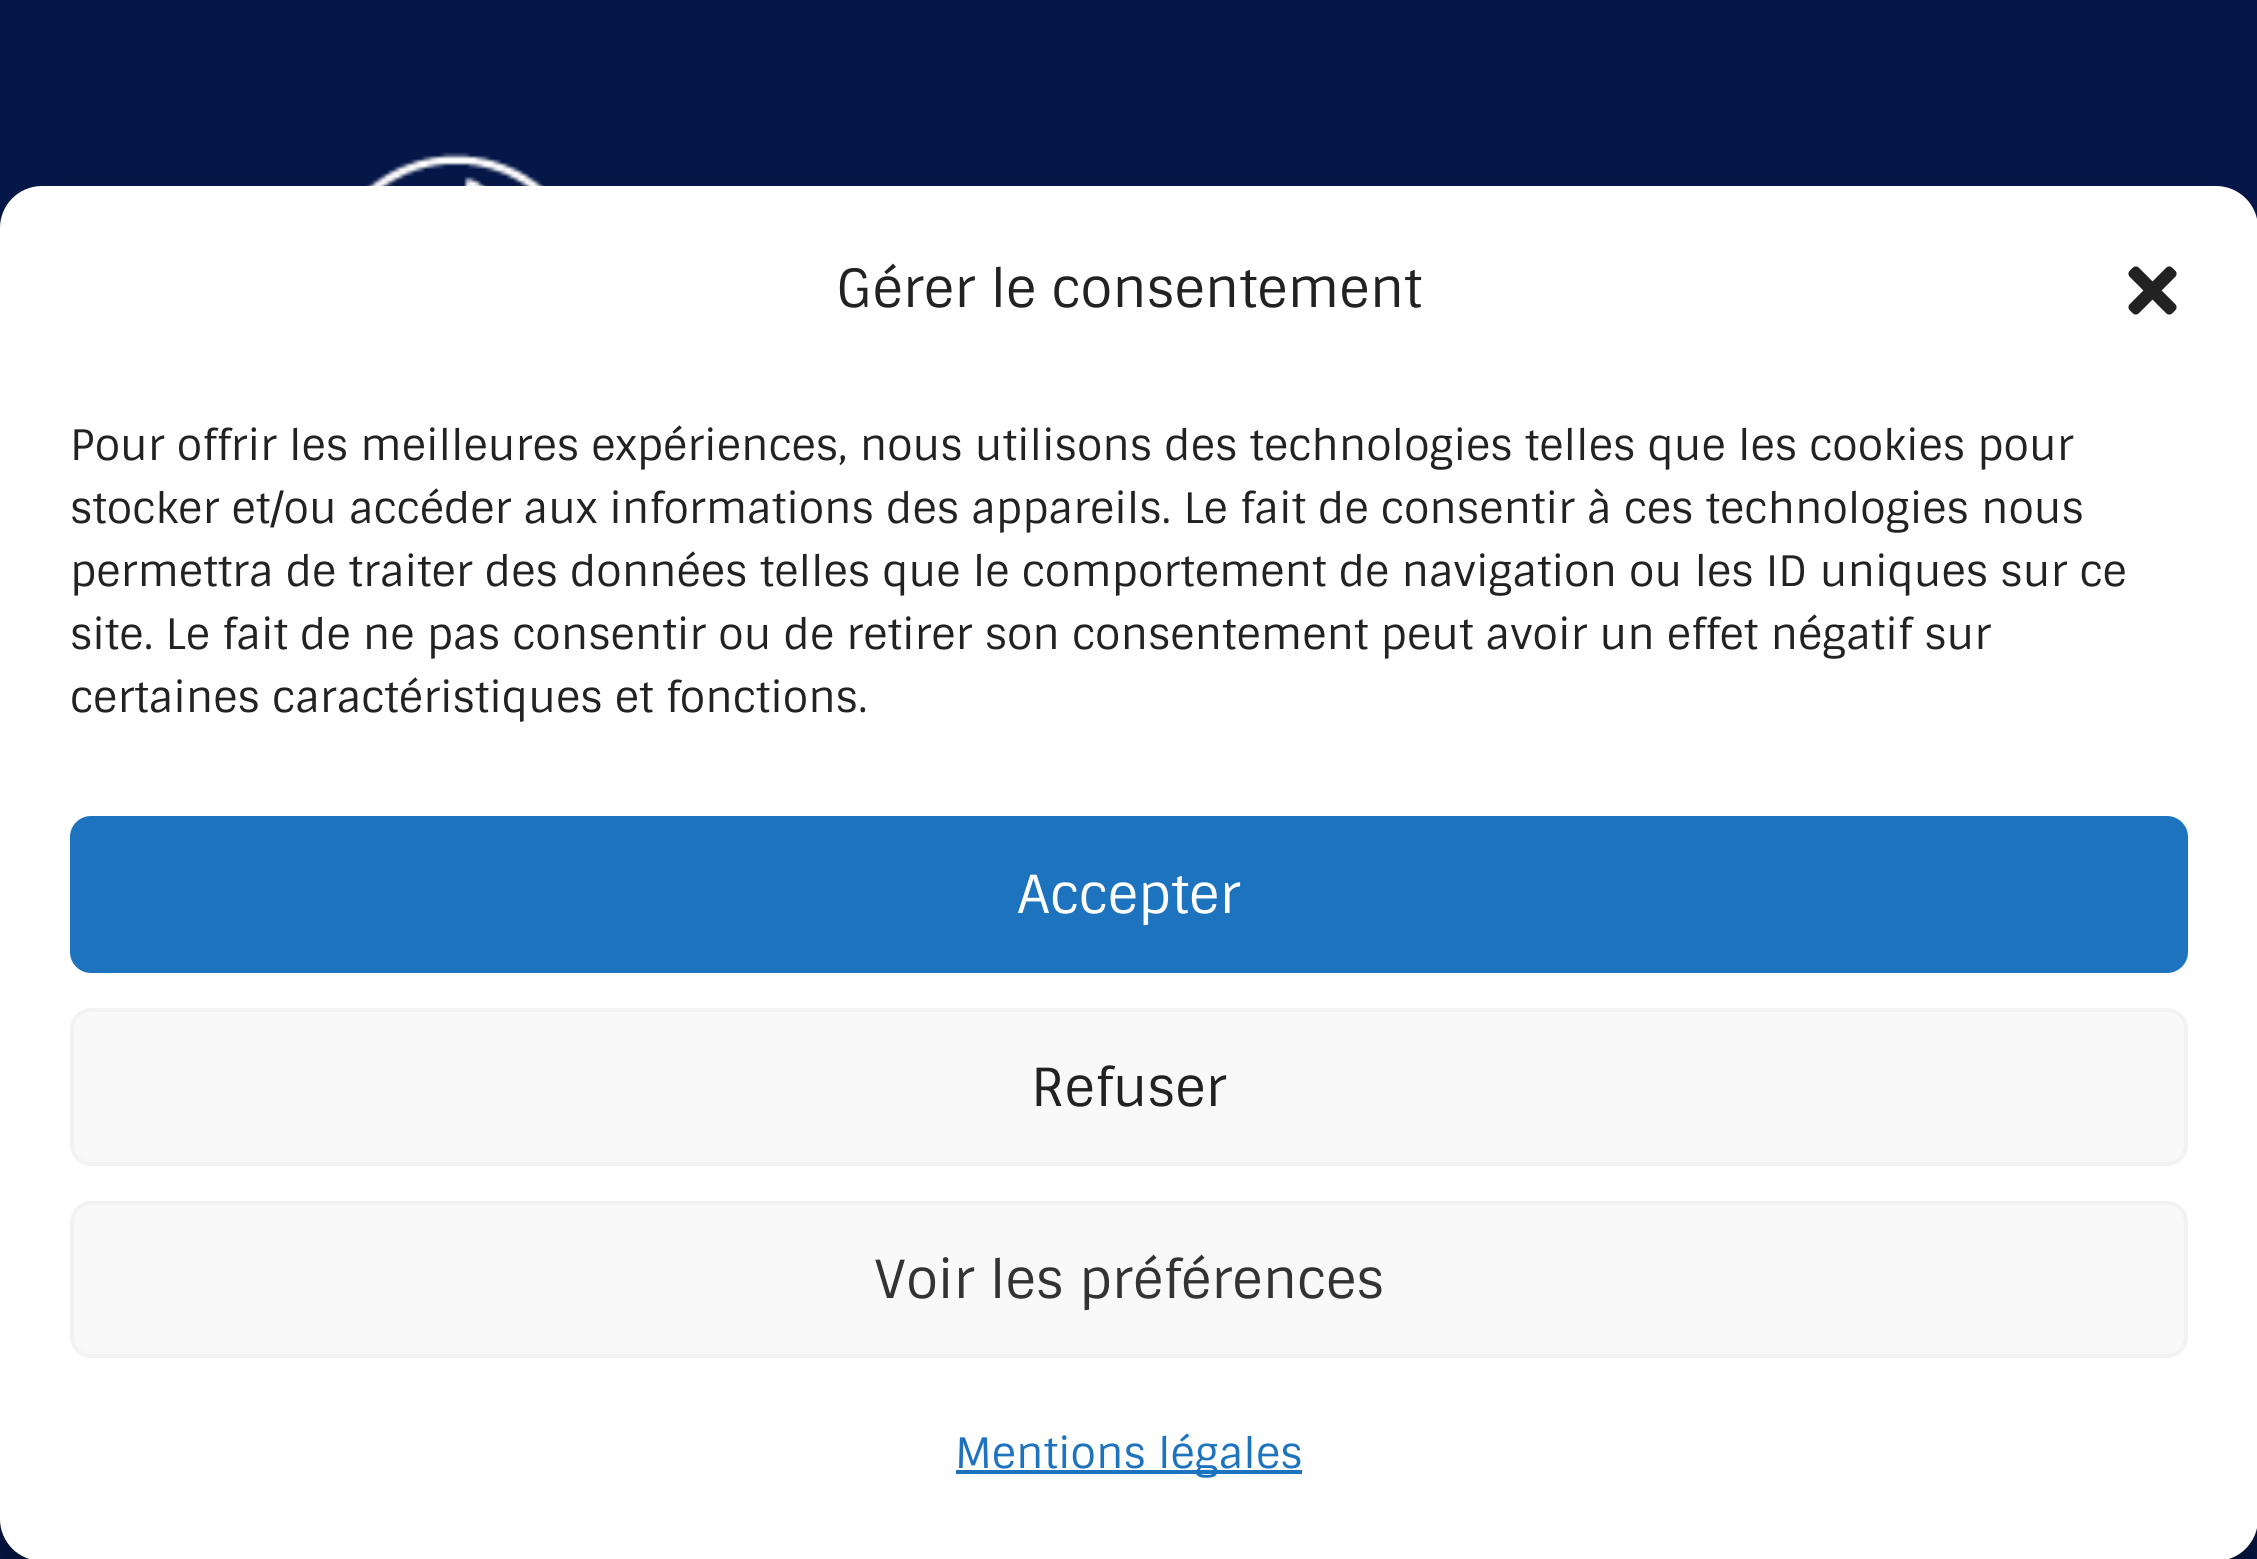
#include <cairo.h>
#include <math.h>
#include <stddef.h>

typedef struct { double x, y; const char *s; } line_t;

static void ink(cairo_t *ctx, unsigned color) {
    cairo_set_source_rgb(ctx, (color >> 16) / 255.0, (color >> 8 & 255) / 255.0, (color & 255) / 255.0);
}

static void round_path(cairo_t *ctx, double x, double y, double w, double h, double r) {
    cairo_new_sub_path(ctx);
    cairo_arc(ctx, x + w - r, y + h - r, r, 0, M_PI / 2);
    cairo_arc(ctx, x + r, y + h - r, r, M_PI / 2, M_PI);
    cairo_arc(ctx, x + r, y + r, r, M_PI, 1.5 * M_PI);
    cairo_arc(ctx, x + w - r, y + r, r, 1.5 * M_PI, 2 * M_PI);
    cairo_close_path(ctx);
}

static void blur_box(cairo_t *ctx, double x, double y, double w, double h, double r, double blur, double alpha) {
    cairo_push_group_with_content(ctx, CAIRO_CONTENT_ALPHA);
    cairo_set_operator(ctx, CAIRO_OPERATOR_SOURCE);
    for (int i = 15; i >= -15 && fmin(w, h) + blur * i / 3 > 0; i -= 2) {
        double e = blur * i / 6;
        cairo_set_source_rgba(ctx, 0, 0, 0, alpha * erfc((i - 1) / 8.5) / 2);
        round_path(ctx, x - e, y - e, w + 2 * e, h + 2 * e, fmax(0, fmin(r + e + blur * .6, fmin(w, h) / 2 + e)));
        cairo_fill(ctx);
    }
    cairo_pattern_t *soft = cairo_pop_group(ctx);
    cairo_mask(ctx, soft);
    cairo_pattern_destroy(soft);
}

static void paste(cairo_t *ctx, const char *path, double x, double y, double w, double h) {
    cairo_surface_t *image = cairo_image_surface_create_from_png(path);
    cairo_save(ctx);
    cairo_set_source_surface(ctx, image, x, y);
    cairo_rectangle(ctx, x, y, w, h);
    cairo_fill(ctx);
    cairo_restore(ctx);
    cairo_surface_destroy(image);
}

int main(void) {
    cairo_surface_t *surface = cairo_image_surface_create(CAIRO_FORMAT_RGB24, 2257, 1559);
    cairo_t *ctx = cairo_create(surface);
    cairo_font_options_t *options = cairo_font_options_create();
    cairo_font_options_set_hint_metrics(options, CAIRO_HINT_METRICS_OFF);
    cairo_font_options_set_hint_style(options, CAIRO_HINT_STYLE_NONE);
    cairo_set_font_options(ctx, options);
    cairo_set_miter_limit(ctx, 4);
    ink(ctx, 0x051749);
    cairo_paint(ctx);
    paste(ctx, "media/1.png", 366, 152, 178, 34);
    ink(ctx, 0x000000);
    blur_box(ctx, 0, 207, 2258, 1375, 42, 10.5, 0.23);
    blur_box(ctx, 0, 221, 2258, 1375, 42, 35, 0.19);
    ink(ctx, 0xFFFFFF);
    round_path(ctx, 0, 186, 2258, 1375, 42);
    cairo_fill(ctx);
    cairo_select_font_face(ctx, "Sintony", CAIRO_FONT_SLANT_NORMAL, CAIRO_FONT_WEIGHT_NORMAL);
    cairo_set_font_size(ctx, 52.5);
    ink(ctx, 0x222222);
    cairo_move_to(ctx, 836, 307);
    cairo_show_text(ctx, "Gérer le consentement");
    paste(ctx, "media/2.png", 2128, 266, 49, 49);
    cairo_set_font_size(ctx, 42);
    {
        static const line_t items[] = {
            {70, 460, "Pour offrir les meilleures expériences, nous utilisons des technologies telles que les cookies pour"},
            {70, 523, "stocker et/ou accéder aux informations des appareils. Le fait de consentir à ces technologies nous"},
            {70, 586, "permettra de traiter des données telles que le comportement de navigation ou les ID uniques sur ce"},
            {70, 649, "site. Le fait de ne pas consentir ou de retirer son consentement peut avoir un effet négatif sur"},
            {70, 712, "certaines caractéristiques et fonctions."},
        };
        for (size_t i = 0; i < sizeof items / sizeof *items; i++) {
            cairo_move_to(ctx, items[i].x, items[i].y);
            cairo_show_text(ctx, items[i].s);
        }
    }
    ink(ctx, 0x1E73BE);
    round_path(ctx, 72, 818, 2114, 153, 19);
    cairo_fill_preserve(ctx);
    cairo_set_line_width(ctx, 4);
    cairo_stroke(ctx);
    cairo_set_font_size(ctx, 52.5);
    ink(ctx, 0xFFFFFF);
    cairo_move_to(ctx, 1017, 913);
    cairo_show_text(ctx, "Accepter");
    ink(ctx, 0xF9F9F9);
    round_path(ctx, 72, 1010, 2114, 154, 19);
    cairo_fill_preserve(ctx);
    ink(ctx, 0xF2F2F2);
    cairo_stroke(ctx);
    ink(ctx, 0x222222);
    cairo_move_to(ctx, 1031, 1106);
    cairo_show_text(ctx, "Refuser");
    ink(ctx, 0xF9F9F9);
    round_path(ctx, 72, 1203, 2114, 153, 19);
    cairo_fill_preserve(ctx);
    ink(ctx, 0xF2F2F2);
    cairo_stroke(ctx);
    ink(ctx, 0x333333);
    cairo_move_to(ctx, 874, 1298);
    cairo_show_text(ctx, "Voir les préférences");
    ink(ctx, 0x1E73BE);
    cairo_rectangle(ctx, 956, 1470, 346, 4);
    cairo_fill(ctx);
    cairo_set_font_size(ctx, 42);
    cairo_move_to(ctx, 955, 1468);
    cairo_show_text(ctx, "Mentions légales");
    cairo_surface_write_to_png(surface, "image.png");
    cairo_font_options_destroy(options);
    cairo_destroy(ctx);
    cairo_surface_destroy(surface);
    return 0;
}
